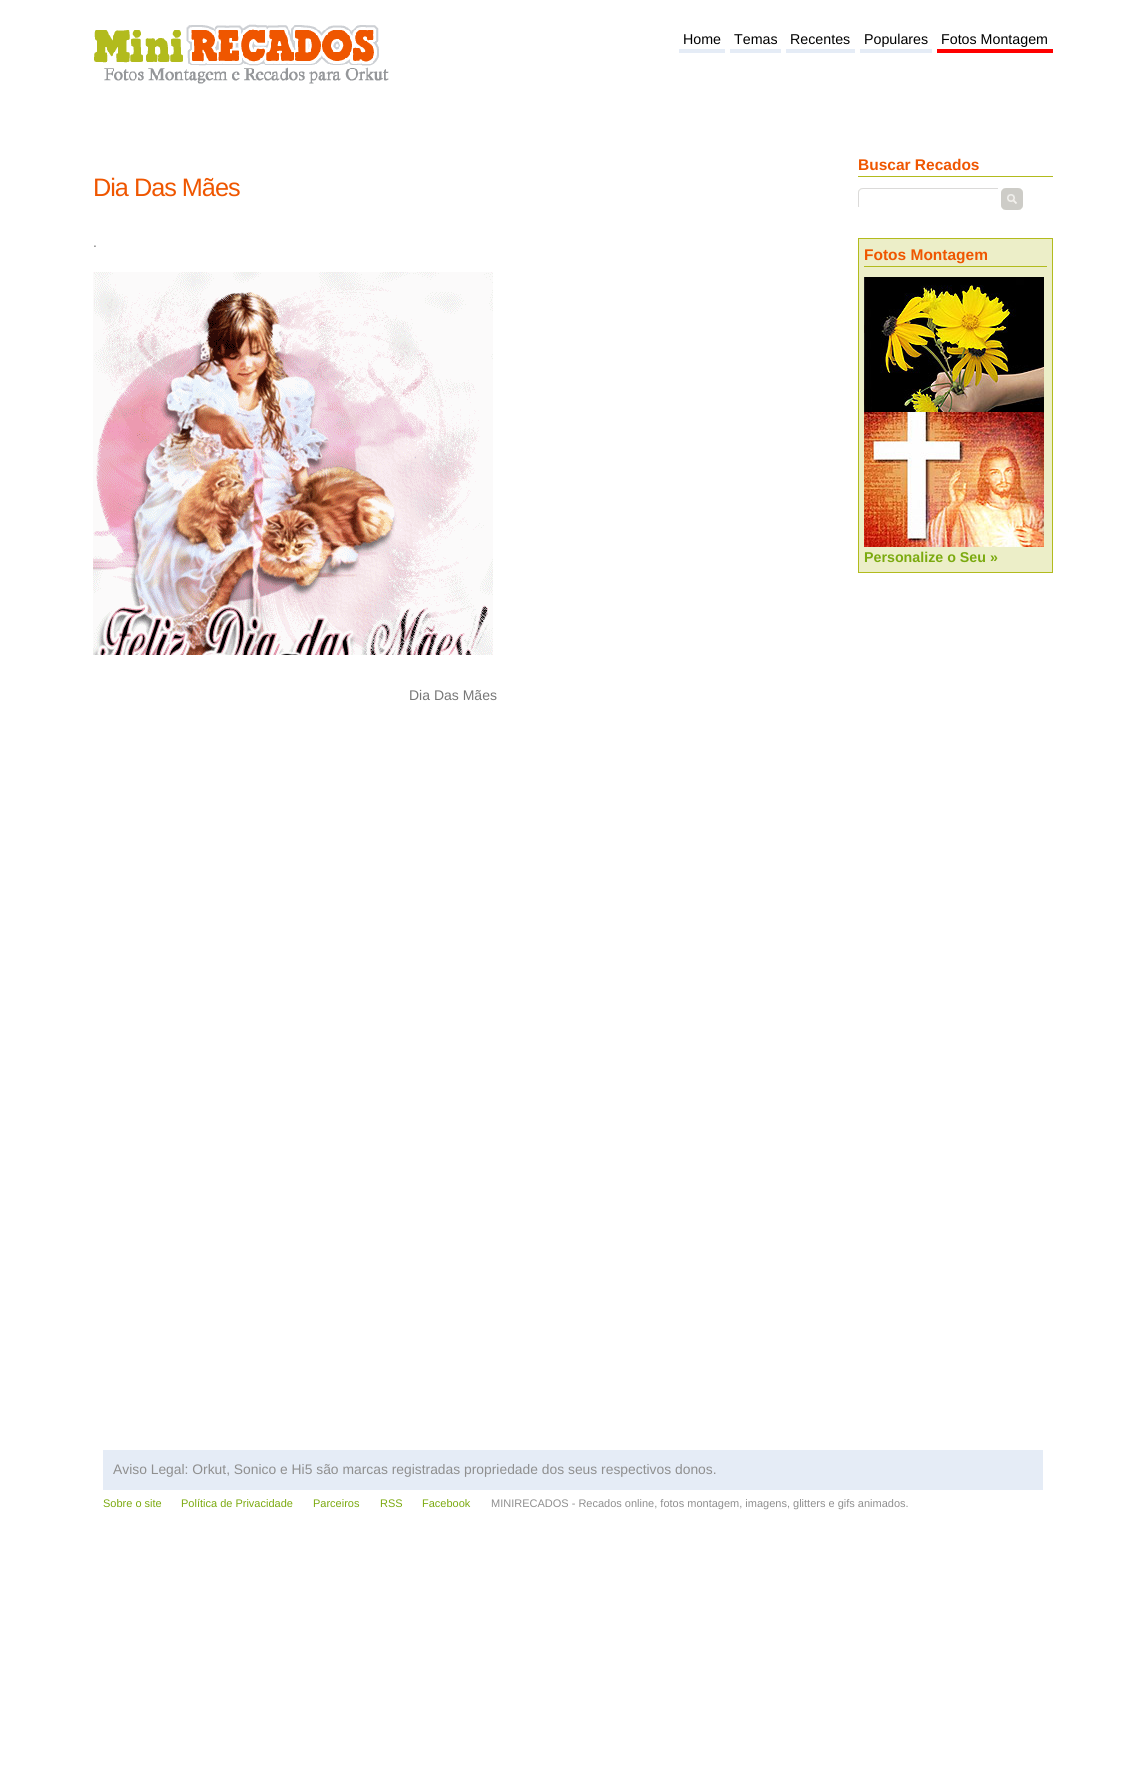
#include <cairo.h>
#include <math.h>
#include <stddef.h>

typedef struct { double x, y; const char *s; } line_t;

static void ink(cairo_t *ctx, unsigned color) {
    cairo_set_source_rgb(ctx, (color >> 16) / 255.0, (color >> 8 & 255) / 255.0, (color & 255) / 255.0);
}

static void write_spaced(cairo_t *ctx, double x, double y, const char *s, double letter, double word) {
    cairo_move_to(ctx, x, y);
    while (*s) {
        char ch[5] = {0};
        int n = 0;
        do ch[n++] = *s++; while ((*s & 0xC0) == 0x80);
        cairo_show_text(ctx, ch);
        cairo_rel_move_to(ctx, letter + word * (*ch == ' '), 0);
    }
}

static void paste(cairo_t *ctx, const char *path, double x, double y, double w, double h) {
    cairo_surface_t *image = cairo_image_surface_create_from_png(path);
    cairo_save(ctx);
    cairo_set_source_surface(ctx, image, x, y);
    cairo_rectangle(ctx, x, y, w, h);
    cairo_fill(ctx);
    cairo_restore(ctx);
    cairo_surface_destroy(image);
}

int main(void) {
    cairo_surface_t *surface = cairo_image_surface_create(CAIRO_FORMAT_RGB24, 1145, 1784);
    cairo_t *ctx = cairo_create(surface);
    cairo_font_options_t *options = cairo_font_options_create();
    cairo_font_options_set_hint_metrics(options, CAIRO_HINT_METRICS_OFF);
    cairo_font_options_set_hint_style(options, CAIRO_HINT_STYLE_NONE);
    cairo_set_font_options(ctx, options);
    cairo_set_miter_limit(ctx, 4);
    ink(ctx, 0xFFFFFF);
    cairo_paint(ctx);
    paste(ctx, "media/1.png", 94, 24, 295, 60);
    ink(ctx, 0xE5ECF6);
    cairo_rectangle(ctx, 679, 49, 46, 4);
    cairo_fill(ctx);
    cairo_select_font_face(ctx, "Liberation Sans", CAIRO_FONT_SLANT_NORMAL, CAIRO_FONT_WEIGHT_NORMAL);
    cairo_set_font_size(ctx, 14.25);
    ink(ctx, 0x000000);
    cairo_move_to(ctx, 683, 44);
    cairo_show_text(ctx, "Home");
    ink(ctx, 0xE5ECF6);
    cairo_rectangle(ctx, 730, 49, 51, 4);
    cairo_fill(ctx);
    ink(ctx, 0x000000);
    cairo_move_to(ctx, 734, 44);
    cairo_show_text(ctx, "Temas");
    ink(ctx, 0xE5ECF6);
    cairo_rectangle(ctx, 786, 49, 69, 4);
    cairo_fill(ctx);
    ink(ctx, 0x000000);
    cairo_move_to(ctx, 790, 44);
    cairo_show_text(ctx, "Recentes");
    ink(ctx, 0xE5ECF6);
    cairo_rectangle(ctx, 860, 49, 72, 4);
    cairo_fill(ctx);
    ink(ctx, 0x000000);
    cairo_move_to(ctx, 864, 44);
    cairo_show_text(ctx, "Populares");
    ink(ctx, 0xFF0000);
    cairo_rectangle(ctx, 937, 49, 116, 4);
    cairo_fill(ctx);
    ink(ctx, 0x000000);
    cairo_move_to(ctx, 941, 44);
    cairo_show_text(ctx, "Fotos Montagem");
    cairo_set_font_size(ctx, 25.25);
    ink(ctx, 0xEF5600);
    write_spaced(ctx, 93, 196, "Dia Das Mães", -1, 0);
    cairo_set_font_size(ctx, 14);
    ink(ctx, 0x777777);
    cairo_move_to(ctx, 93, 247);
    cairo_show_text(ctx, ".");
    paste(ctx, "media/2.png", 93, 272, 400, 383);
    cairo_move_to(ctx, 409, 700);
    cairo_show_text(ctx, "Dia Das Mães");
    ink(ctx, 0xB2BB1D);
    cairo_rectangle(ctx, 858, 176, 195, 1);
    cairo_fill(ctx);
    cairo_select_font_face(ctx, "Liberation Sans", CAIRO_FONT_SLANT_NORMAL, CAIRO_FONT_WEIGHT_BOLD);
    cairo_set_font_size(ctx, 15.5);
    ink(ctx, 0xEF5600);
    cairo_move_to(ctx, 858, 170);
    cairo_show_text(ctx, "Buscar Recados");
    paste(ctx, "media/3.png", 858, 188, 140, 19);
    paste(ctx, "media/4.png", 1000, 187, 25, 25);
    ink(ctx, 0xECEEC8);
    cairo_rectangle(ctx, 858.5, 238.5, 194, 334);
    cairo_fill_preserve(ctx);
    ink(ctx, 0xB2BB1D);
    cairo_set_line_width(ctx, 1);
    cairo_stroke(ctx);
    cairo_rectangle(ctx, 864, 266, 183, 1);
    cairo_fill(ctx);
    ink(ctx, 0xEF5600);
    cairo_move_to(ctx, 864, 260);
    cairo_show_text(ctx, "Fotos Montagem");
    paste(ctx, "media/5.png", 864, 277, 180, 135);
    paste(ctx, "media/6.png", 864, 412, 180, 135);
    cairo_set_font_size(ctx, 14.25);
    ink(ctx, 0x7BAA0F);
    cairo_move_to(ctx, 864, 562);
    cairo_show_text(ctx, "Personalize o Seu »");
    ink(ctx, 0xE5ECF6);
    cairo_rectangle(ctx, 103, 1450, 940, 40);
    cairo_fill(ctx);
    cairo_select_font_face(ctx, "Liberation Sans", CAIRO_FONT_SLANT_NORMAL, CAIRO_FONT_WEIGHT_NORMAL);
    cairo_set_font_size(ctx, 13.85);
    ink(ctx, 0x8F8F8F);
    cairo_move_to(ctx, 113, 1474);
    cairo_show_text(ctx, "Aviso Legal: Orkut, Sonico e Hi5 são marcas registradas propriedade dos seus respectivos donos.");
    cairo_set_font_size(ctx, 11);
    ink(ctx, 0x7BAA0F);
    {
        static const line_t items[] = {
            {103, 1507, "Sobre o site"},
            {181, 1507, "Política de Privacidade"},
            {313, 1507, "Parceiros"},
            {380, 1507, "RSS"},
            {422, 1507, "Facebook"},
        };
        for (size_t i = 0; i < sizeof items / sizeof *items; i++) {
            cairo_move_to(ctx, items[i].x, items[i].y);
            cairo_show_text(ctx, items[i].s);
        }
    }
    ink(ctx, 0x8F8F8F);
    cairo_move_to(ctx, 491, 1507);
    cairo_show_text(ctx, "MINIRECADOS - Recados online, fotos montagem, imagens, glitters e gifs animados.");
    cairo_surface_write_to_png(surface, "image.png");
    cairo_font_options_destroy(options);
    cairo_destroy(ctx);
    cairo_surface_destroy(surface);
    return 0;
}
